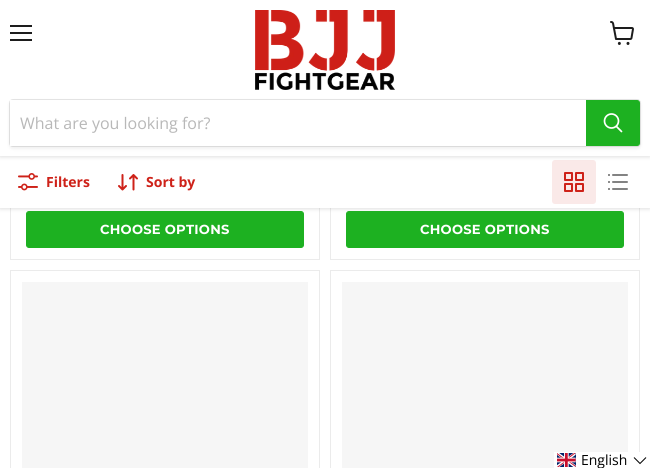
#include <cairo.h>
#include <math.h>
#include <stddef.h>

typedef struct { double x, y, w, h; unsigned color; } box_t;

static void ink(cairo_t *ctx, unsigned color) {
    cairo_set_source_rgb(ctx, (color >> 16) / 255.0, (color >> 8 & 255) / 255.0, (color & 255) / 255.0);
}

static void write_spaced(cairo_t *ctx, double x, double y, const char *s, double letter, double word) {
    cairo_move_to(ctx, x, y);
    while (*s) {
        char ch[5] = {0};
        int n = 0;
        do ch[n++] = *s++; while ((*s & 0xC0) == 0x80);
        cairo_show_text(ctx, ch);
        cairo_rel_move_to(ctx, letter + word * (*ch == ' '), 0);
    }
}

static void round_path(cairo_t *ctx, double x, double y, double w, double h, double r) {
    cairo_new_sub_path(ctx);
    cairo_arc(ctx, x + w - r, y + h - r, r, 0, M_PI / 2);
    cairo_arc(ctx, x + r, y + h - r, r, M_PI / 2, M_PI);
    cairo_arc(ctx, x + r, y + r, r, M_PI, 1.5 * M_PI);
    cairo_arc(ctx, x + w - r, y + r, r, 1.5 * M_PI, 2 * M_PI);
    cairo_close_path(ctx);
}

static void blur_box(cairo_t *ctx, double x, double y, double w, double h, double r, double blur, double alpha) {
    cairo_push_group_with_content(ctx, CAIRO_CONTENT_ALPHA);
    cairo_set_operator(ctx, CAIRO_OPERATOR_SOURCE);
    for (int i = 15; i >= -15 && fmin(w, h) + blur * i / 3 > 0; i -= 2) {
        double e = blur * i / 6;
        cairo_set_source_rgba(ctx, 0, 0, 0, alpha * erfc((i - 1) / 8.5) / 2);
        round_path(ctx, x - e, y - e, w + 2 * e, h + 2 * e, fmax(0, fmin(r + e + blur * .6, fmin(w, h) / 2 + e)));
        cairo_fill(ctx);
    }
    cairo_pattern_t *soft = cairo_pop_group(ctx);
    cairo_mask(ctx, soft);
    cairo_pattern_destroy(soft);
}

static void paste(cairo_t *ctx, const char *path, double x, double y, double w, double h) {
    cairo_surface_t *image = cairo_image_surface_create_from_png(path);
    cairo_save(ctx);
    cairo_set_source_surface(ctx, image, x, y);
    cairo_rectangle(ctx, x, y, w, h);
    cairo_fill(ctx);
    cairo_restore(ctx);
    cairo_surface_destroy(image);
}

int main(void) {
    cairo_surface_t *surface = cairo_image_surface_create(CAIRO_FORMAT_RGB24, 650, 468);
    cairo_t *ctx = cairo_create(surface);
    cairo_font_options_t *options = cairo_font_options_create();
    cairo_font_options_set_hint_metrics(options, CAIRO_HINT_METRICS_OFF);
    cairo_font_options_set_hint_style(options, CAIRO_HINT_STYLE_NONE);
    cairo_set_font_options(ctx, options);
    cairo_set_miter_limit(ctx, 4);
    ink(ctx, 0xFFFFFF);
    cairo_paint(ctx);
    cairo_rectangle(ctx, 10.5, -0.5, 309, 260);
    ink(ctx, 0xEBEBEB);
    cairo_set_line_width(ctx, 1);
    cairo_stroke(ctx);
    ink(ctx, 0x1DB121);
    round_path(ctx, 26.5, 211.5, 277, 36, 2.5);
    cairo_fill_preserve(ctx);
    cairo_stroke(ctx);
    cairo_rectangle(ctx, 330.5, -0.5, 309, 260);
    ink(ctx, 0xEBEBEB);
    cairo_stroke(ctx);
    ink(ctx, 0x1DB121);
    round_path(ctx, 346.5, 211.5, 277, 36, 2.5);
    cairo_fill_preserve(ctx);
    cairo_stroke(ctx);
    ink(ctx, 0x808080);
    blur_box(ctx, 0, 157, 650, 52, 0, 2, 0.25);
    ink(ctx, 0xFFFFFF);
    cairo_rectangle(ctx, 0, 156, 650, 52);
    cairo_fill(ctx);
    ink(ctx, 0xFAE9E8);
    round_path(ctx, 552, 160, 44, 44, 3);
    cairo_fill(ctx);
    ink(ctx, 0x808080);
    blur_box(ctx, 0, 1, 650, 156, 0, 2, 0.25);
    {
        static const box_t items[] = {
            {0, 0, 650, 156, 0xFFFFFF},
            {10, 25, 22, 2, 0x1D1D1D},
            {10, 32, 22, 2, 0x1D1D1D},
            {10, 39, 22, 2, 0x1D1D1D},
        };
        for (size_t i = 0; i < sizeof items / sizeof *items; i++) {
            ink(ctx, items[i].color);
            cairo_rectangle(ctx, items[i].x, items[i].y, items[i].w, items[i].h);
            cairo_fill(ctx);
        }
    }
    paste(ctx, "media/1.png", 610, 21, 24, 24);
    paste(ctx, "media/2.png", 255, 10, 140, 80);
    ink(ctx, 0x808080);
    blur_box(ctx, 9, 101, 632, 48, 4, 1.5, 0.11);
    round_path(ctx, 9.5, 99.5, 631, 47, 3.5);
    cairo_set_source_rgba(ctx, 0.502, 0.502, 0.502, 0.2);
    cairo_stroke(ctx);
    ink(ctx, 0xFFFFFF);
    cairo_rectangle(ctx, 10, 100, 576, 46);
    cairo_fill(ctx);
    cairo_select_font_face(ctx, "Open Sans", CAIRO_FONT_SLANT_NORMAL, CAIRO_FONT_WEIGHT_NORMAL);
    cairo_set_font_size(ctx, 16);
    ink(ctx, 0xB8B8B8);
    cairo_move_to(ctx, 20, 129);
    cairo_show_text(ctx, "What are you looking for?");
    ink(ctx, 0x1DB121);
    cairo_new_path(ctx);
    cairo_move_to(ctx, 586.5, 100.5);
    cairo_line_to(ctx, 637, 100.5);
    cairo_curve_to(ctx, 638.5, 100.5, 639.5, 101.5, 639.5, 103);
    cairo_line_to(ctx, 639.5, 143);
    cairo_curve_to(ctx, 639.5, 144.5, 638.5, 145.5, 637, 145.5);
    cairo_line_to(ctx, 586.5, 145.5);
    cairo_close_path(ctx);
    cairo_fill_preserve(ctx);
    cairo_stroke(ctx);
    cairo_new_path(ctx);
    cairo_move_to(ctx, 621.5, 131.5);
    cairo_line_to(ctx, 616.5, 126.5);
    ink(ctx, 0xFFFFFF);
    cairo_set_line_width(ctx, 1.7);
    cairo_set_line_cap(ctx, CAIRO_LINE_CAP_ROUND);
    cairo_stroke(ctx);
    cairo_arc(ctx, 611.5, 121, 7, 0, 2 * M_PI);
    cairo_set_line_cap(ctx, CAIRO_LINE_CAP_BUTT);
    cairo_stroke(ctx);
    paste(ctx, "media/3.png", 18, 173, 20, 18);
    cairo_select_font_face(ctx, "Open Sans", CAIRO_FONT_SLANT_NORMAL, CAIRO_FONT_WEIGHT_BOLD);
    cairo_set_font_size(ctx, 14);
    ink(ctx, 0xCE2219);
    cairo_move_to(ctx, 46, 187);
    cairo_show_text(ctx, "Filters");
    paste(ctx, "media/4.png", 118, 174, 20, 17);
    cairo_move_to(ctx, 146, 187);
    cairo_show_text(ctx, "Sort by");
    paste(ctx, "media/5.png", 564, 172, 20, 20);
    paste(ctx, "media/6.png", 608, 174, 20, 16);
    cairo_select_font_face(ctx, "Montserrat", CAIRO_FONT_SLANT_NORMAL, CAIRO_FONT_WEIGHT_BOLD);
    cairo_set_font_size(ctx, 13.1);
    ink(ctx, 0xFFFFFF);
    write_spaced(ctx, 100, 234, "CHOOSE OPTIONS", 0.25, 0);
    write_spaced(ctx, 420, 234, "CHOOSE OPTIONS", 0.25, 0);
    cairo_rectangle(ctx, 10.5, 270.5, 309, 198);
    ink(ctx, 0xEBEBEB);
    cairo_set_line_width(ctx, 1);
    cairo_stroke(ctx);
    ink(ctx, 0xF6F6F6);
    cairo_rectangle(ctx, 22, 282, 286, 186);
    cairo_fill(ctx);
    cairo_rectangle(ctx, 330.5, 270.5, 309, 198);
    ink(ctx, 0xEBEBEB);
    cairo_stroke(ctx);
    ink(ctx, 0xF6F6F6);
    cairo_rectangle(ctx, 342, 282, 286, 186);
    cairo_fill(ctx);
    ink(ctx, 0xFFFFFF);
    cairo_rectangle(ctx, 554, 452, 86, 16);
    cairo_fill(ctx);
    paste(ctx, "media/7.png", 557, 453, 19, 14);
    cairo_select_font_face(ctx, "Open Sans", CAIRO_FONT_SLANT_NORMAL, CAIRO_FONT_WEIGHT_NORMAL);
    cairo_set_font_size(ctx, 14);
    ink(ctx, 0x000000);
    cairo_move_to(ctx, 581, 465);
    cairo_show_text(ctx, "English");
    cairo_new_path(ctx);
    cairo_move_to(ctx, 634, 457.5);
    cairo_line_to(ctx, 640, 463.5);
    cairo_line_to(ctx, 646, 457.5);
    cairo_stroke(ctx);
    cairo_surface_write_to_png(surface, "image.png");
    cairo_font_options_destroy(options);
    cairo_destroy(ctx);
    cairo_surface_destroy(surface);
    return 0;
}
